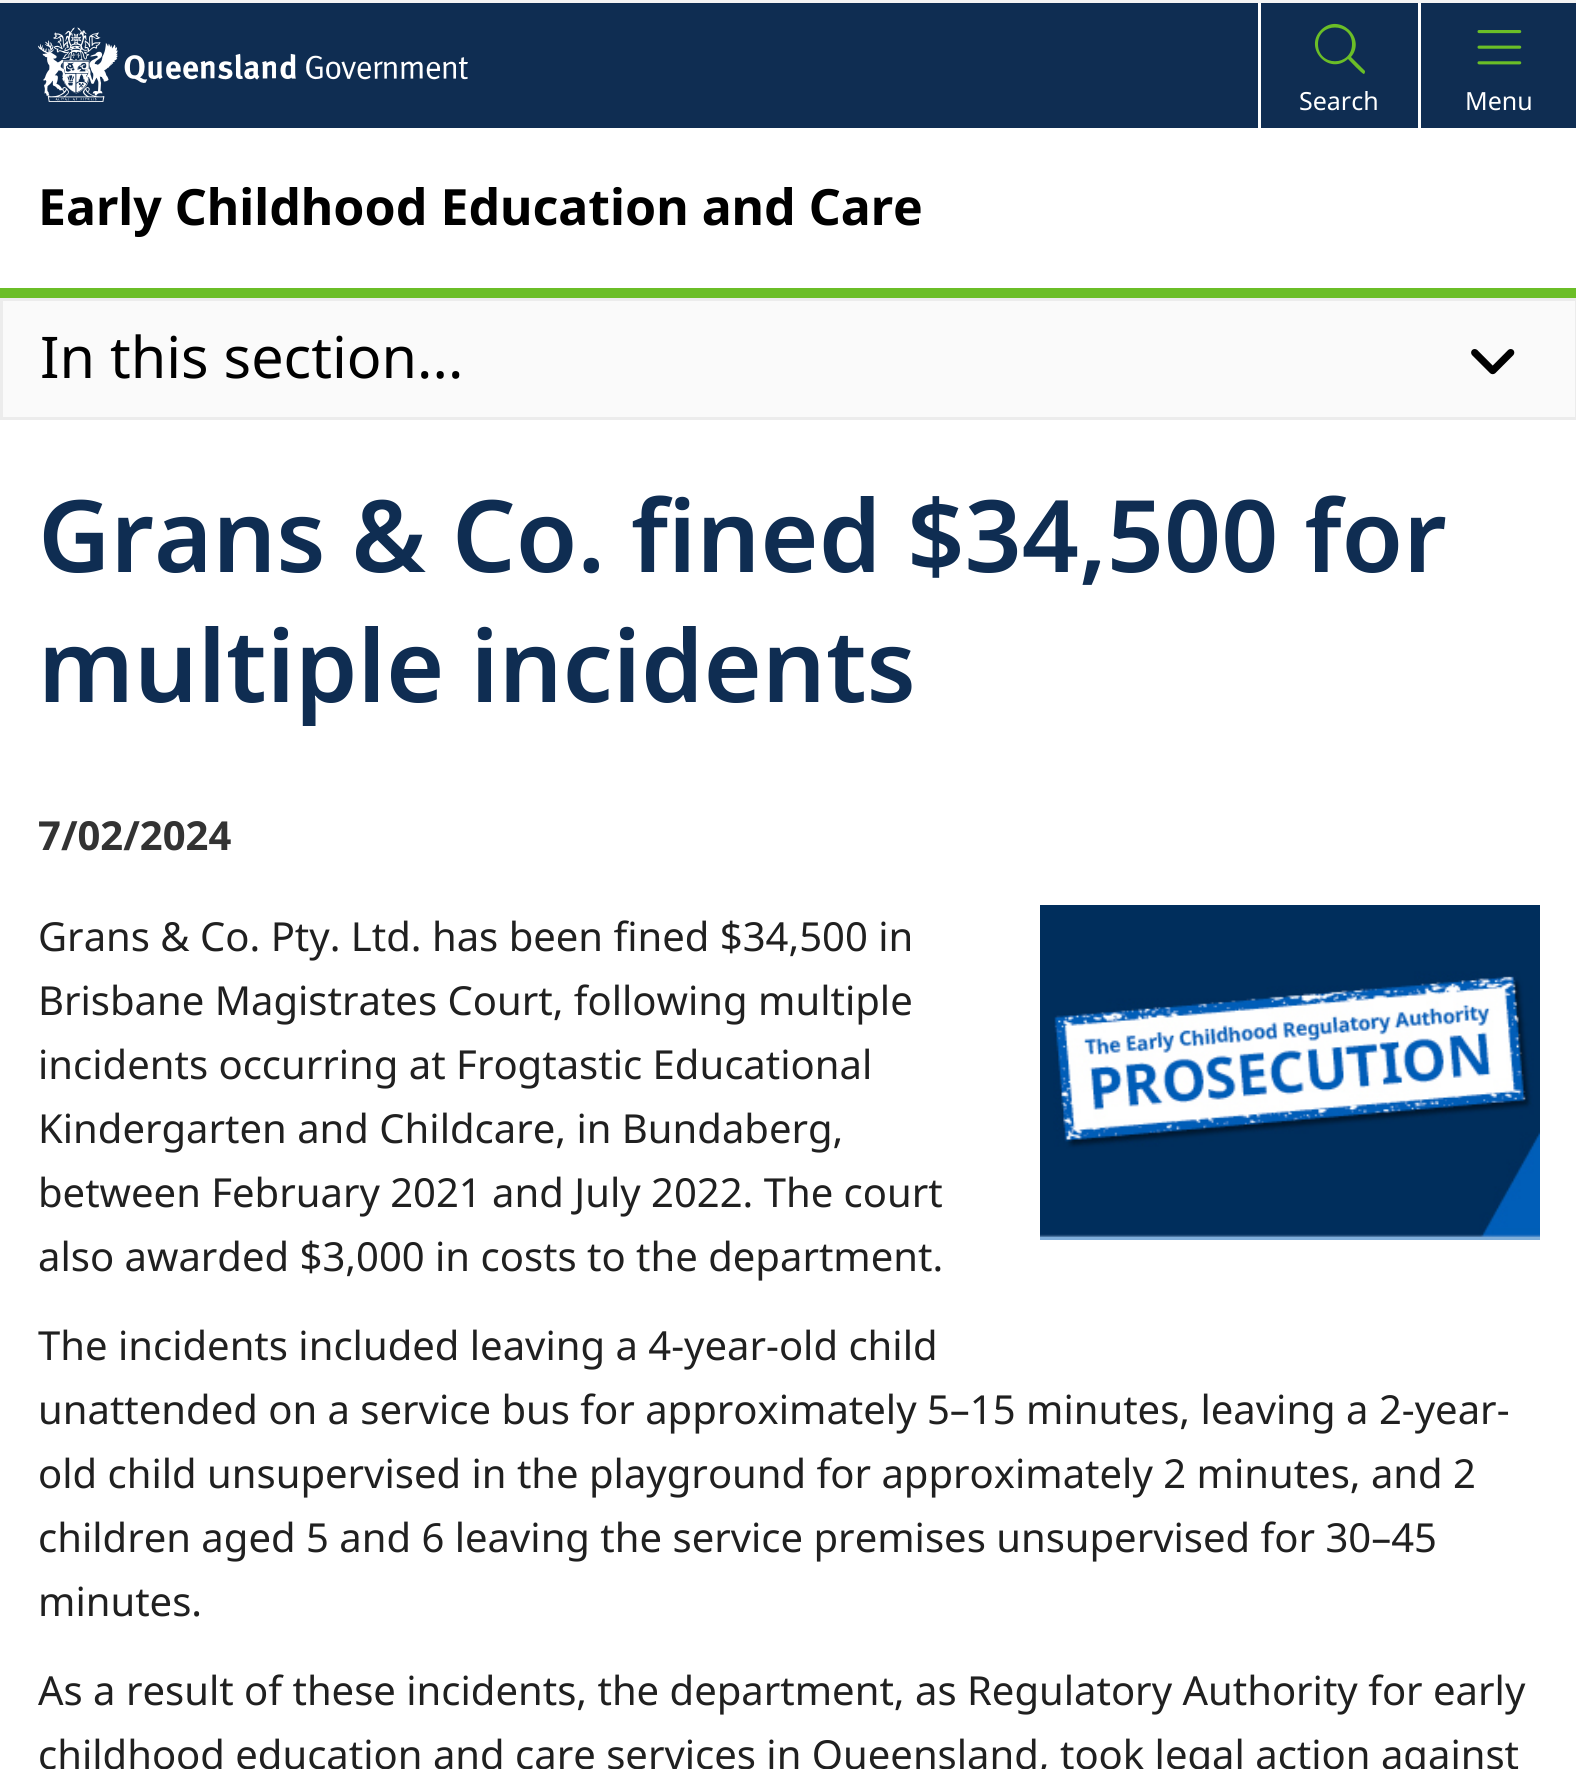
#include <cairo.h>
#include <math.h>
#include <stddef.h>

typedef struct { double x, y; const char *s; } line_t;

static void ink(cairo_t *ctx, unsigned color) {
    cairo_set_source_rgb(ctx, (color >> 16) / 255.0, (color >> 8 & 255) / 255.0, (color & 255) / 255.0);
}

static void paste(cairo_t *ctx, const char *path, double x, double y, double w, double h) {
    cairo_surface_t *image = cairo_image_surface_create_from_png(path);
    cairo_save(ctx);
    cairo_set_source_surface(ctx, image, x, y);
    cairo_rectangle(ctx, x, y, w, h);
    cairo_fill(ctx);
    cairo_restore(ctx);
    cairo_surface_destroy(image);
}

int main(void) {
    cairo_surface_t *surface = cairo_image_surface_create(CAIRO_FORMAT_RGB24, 1576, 1769);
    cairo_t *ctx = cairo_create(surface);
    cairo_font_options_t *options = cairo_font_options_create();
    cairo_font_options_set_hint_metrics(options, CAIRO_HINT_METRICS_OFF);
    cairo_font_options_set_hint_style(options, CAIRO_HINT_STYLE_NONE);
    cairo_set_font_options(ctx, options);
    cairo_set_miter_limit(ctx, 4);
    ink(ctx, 0xFFFFFF);
    cairo_paint(ctx);
    ink(ctx, 0xF3F3F3);
    cairo_rectangle(ctx, 0, 0, 1576, 3);
    cairo_fill(ctx);
    ink(ctx, 0x0F2D52);
    cairo_rectangle(ctx, 0, 3, 1576, 125);
    cairo_fill(ctx);
    paste(ctx, "media/1.png", 38, 27, 430, 75);
    ink(ctx, 0xFFFFFF);
    cairo_rectangle(ctx, 1258, 3, 3, 125);
    cairo_fill(ctx);
    ink(ctx, 0x6BBE27);
    cairo_new_path(ctx);
    cairo_move_to(ctx, 1352, 44);
    cairo_curve_to(ctx, 1352, 22, 1318, 22, 1318, 44);
    cairo_curve_to(ctx, 1318, 67, 1352, 67, 1352, 44);
    cairo_close_path(ctx);
    cairo_move_to(ctx, 1348, 59);
    cairo_curve_to(ctx, 1329, 76, 1303, 48, 1321, 30);
    cairo_curve_to(ctx, 1339, 12, 1367, 38, 1351, 57);
    cairo_line_to(ctx, 1365, 71);
    cairo_curve_to(ctx, 1365, 72, 1365, 73, 1364, 74);
    cairo_curve_to(ctx, 1362, 74, 1350, 61, 1348, 59);
    cairo_close_path(ctx);
    cairo_fill(ctx);
    cairo_select_font_face(ctx, "Noto Sans", CAIRO_FONT_SLANT_NORMAL, CAIRO_FONT_WEIGHT_NORMAL);
    cairo_set_font_size(ctx, 25);
    ink(ctx, 0xFFFFFF);
    cairo_move_to(ctx, 1299, 110);
    cairo_show_text(ctx, "Search");
    cairo_rectangle(ctx, 1418, 3, 3, 125);
    cairo_fill(ctx);
    paste(ctx, "media/2.png", 1477, 30, 45, 35);
    cairo_move_to(ctx, 1465, 110);
    cairo_show_text(ctx, "Menu");
    ink(ctx, 0x6BBE27);
    cairo_rectangle(ctx, 0, 288, 1576, 10);
    cairo_fill(ctx);
    cairo_select_font_face(ctx, "Noto Sans", CAIRO_FONT_SLANT_NORMAL, CAIRO_FONT_WEIGHT_BOLD);
    cairo_set_font_size(ctx, 50);
    ink(ctx, 0x000000);
    cairo_move_to(ctx, 38, 225);
    cairo_show_text(ctx, "Early Childhood Education and Care");
    ink(ctx, 0xFAFAFA);
    cairo_rectangle(ctx, 1.5, 299.5, 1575, 119);
    cairo_fill_preserve(ctx);
    ink(ctx, 0xECECEC);
    cairo_set_line_width(ctx, 3);
    cairo_stroke(ctx);
    cairo_select_font_face(ctx, "Noto Sans", CAIRO_FONT_SLANT_NORMAL, CAIRO_FONT_WEIGHT_NORMAL);
    cairo_set_font_size(ctx, 57.5);
    ink(ctx, 0x000000);
    cairo_move_to(ctx, 40, 378);
    cairo_show_text(ctx, "In this section...");
    paste(ctx, "media/3.png", 1471, 349, 44, 26);
    cairo_select_font_face(ctx, "Noto Sans SemiBold", CAIRO_FONT_SLANT_NORMAL, CAIRO_FONT_WEIGHT_NORMAL);
    cairo_set_font_size(ctx, 100);
    ink(ctx, 0x0F2D52);
    cairo_move_to(ctx, 38, 572);
    cairo_show_text(ctx, "Grans & Co. fined $34,500 for");
    cairo_move_to(ctx, 38, 702);
    cairo_show_text(ctx, "multiple incidents");
    cairo_select_font_face(ctx, "Noto Sans", CAIRO_FONT_SLANT_NORMAL, CAIRO_FONT_WEIGHT_BOLD);
    cairo_set_font_size(ctx, 40);
    ink(ctx, 0x333333);
    cairo_move_to(ctx, 38, 850);
    cairo_show_text(ctx, "7/02/2024");
    paste(ctx, "media/4.png", 1040, 905, 500, 335);
    cairo_select_font_face(ctx, "Noto Sans", CAIRO_FONT_SLANT_NORMAL, CAIRO_FONT_WEIGHT_NORMAL);
    ink(ctx, 0x202020);
    {
        static const line_t items[] = {
            {38, 951, "Grans & Co. Pty. Ltd. has been fined $34,500 in"},
            {38, 1015, "Brisbane Magistrates Court, following multiple"},
            {38, 1079, "incidents occurring at Frogtastic Educational"},
            {38, 1143, "Kindergarten and Childcare, in Bundaberg,"},
            {38, 1207, "between February 2021 and July 2022. The court"},
            {38, 1271, "also awarded $3,000 in costs to the department."},
            {38, 1360, "The incidents included leaving a 4-year-old child"},
            {38, 1424, "unattended on a service bus for approximately 5–15 minutes, leaving a 2-year-"},
            {38, 1488, "old child unsupervised in the playground for approximately 2 minutes, and 2"},
            {38, 1552, "children aged 5 and 6 leaving the service premises unsupervised for 30–45"},
            {38, 1616, "minutes."},
            {38, 1705, "As a result of these incidents, the department, as Regulatory Authority for early"},
            {38, 1769, "childhood education and care services in Queensland, took legal action against"},
        };
        for (size_t i = 0; i < sizeof items / sizeof *items; i++) {
            cairo_move_to(ctx, items[i].x, items[i].y);
            cairo_show_text(ctx, items[i].s);
        }
    }
    cairo_surface_write_to_png(surface, "image.png");
    cairo_font_options_destroy(options);
    cairo_destroy(ctx);
    cairo_surface_destroy(surface);
    return 0;
}
